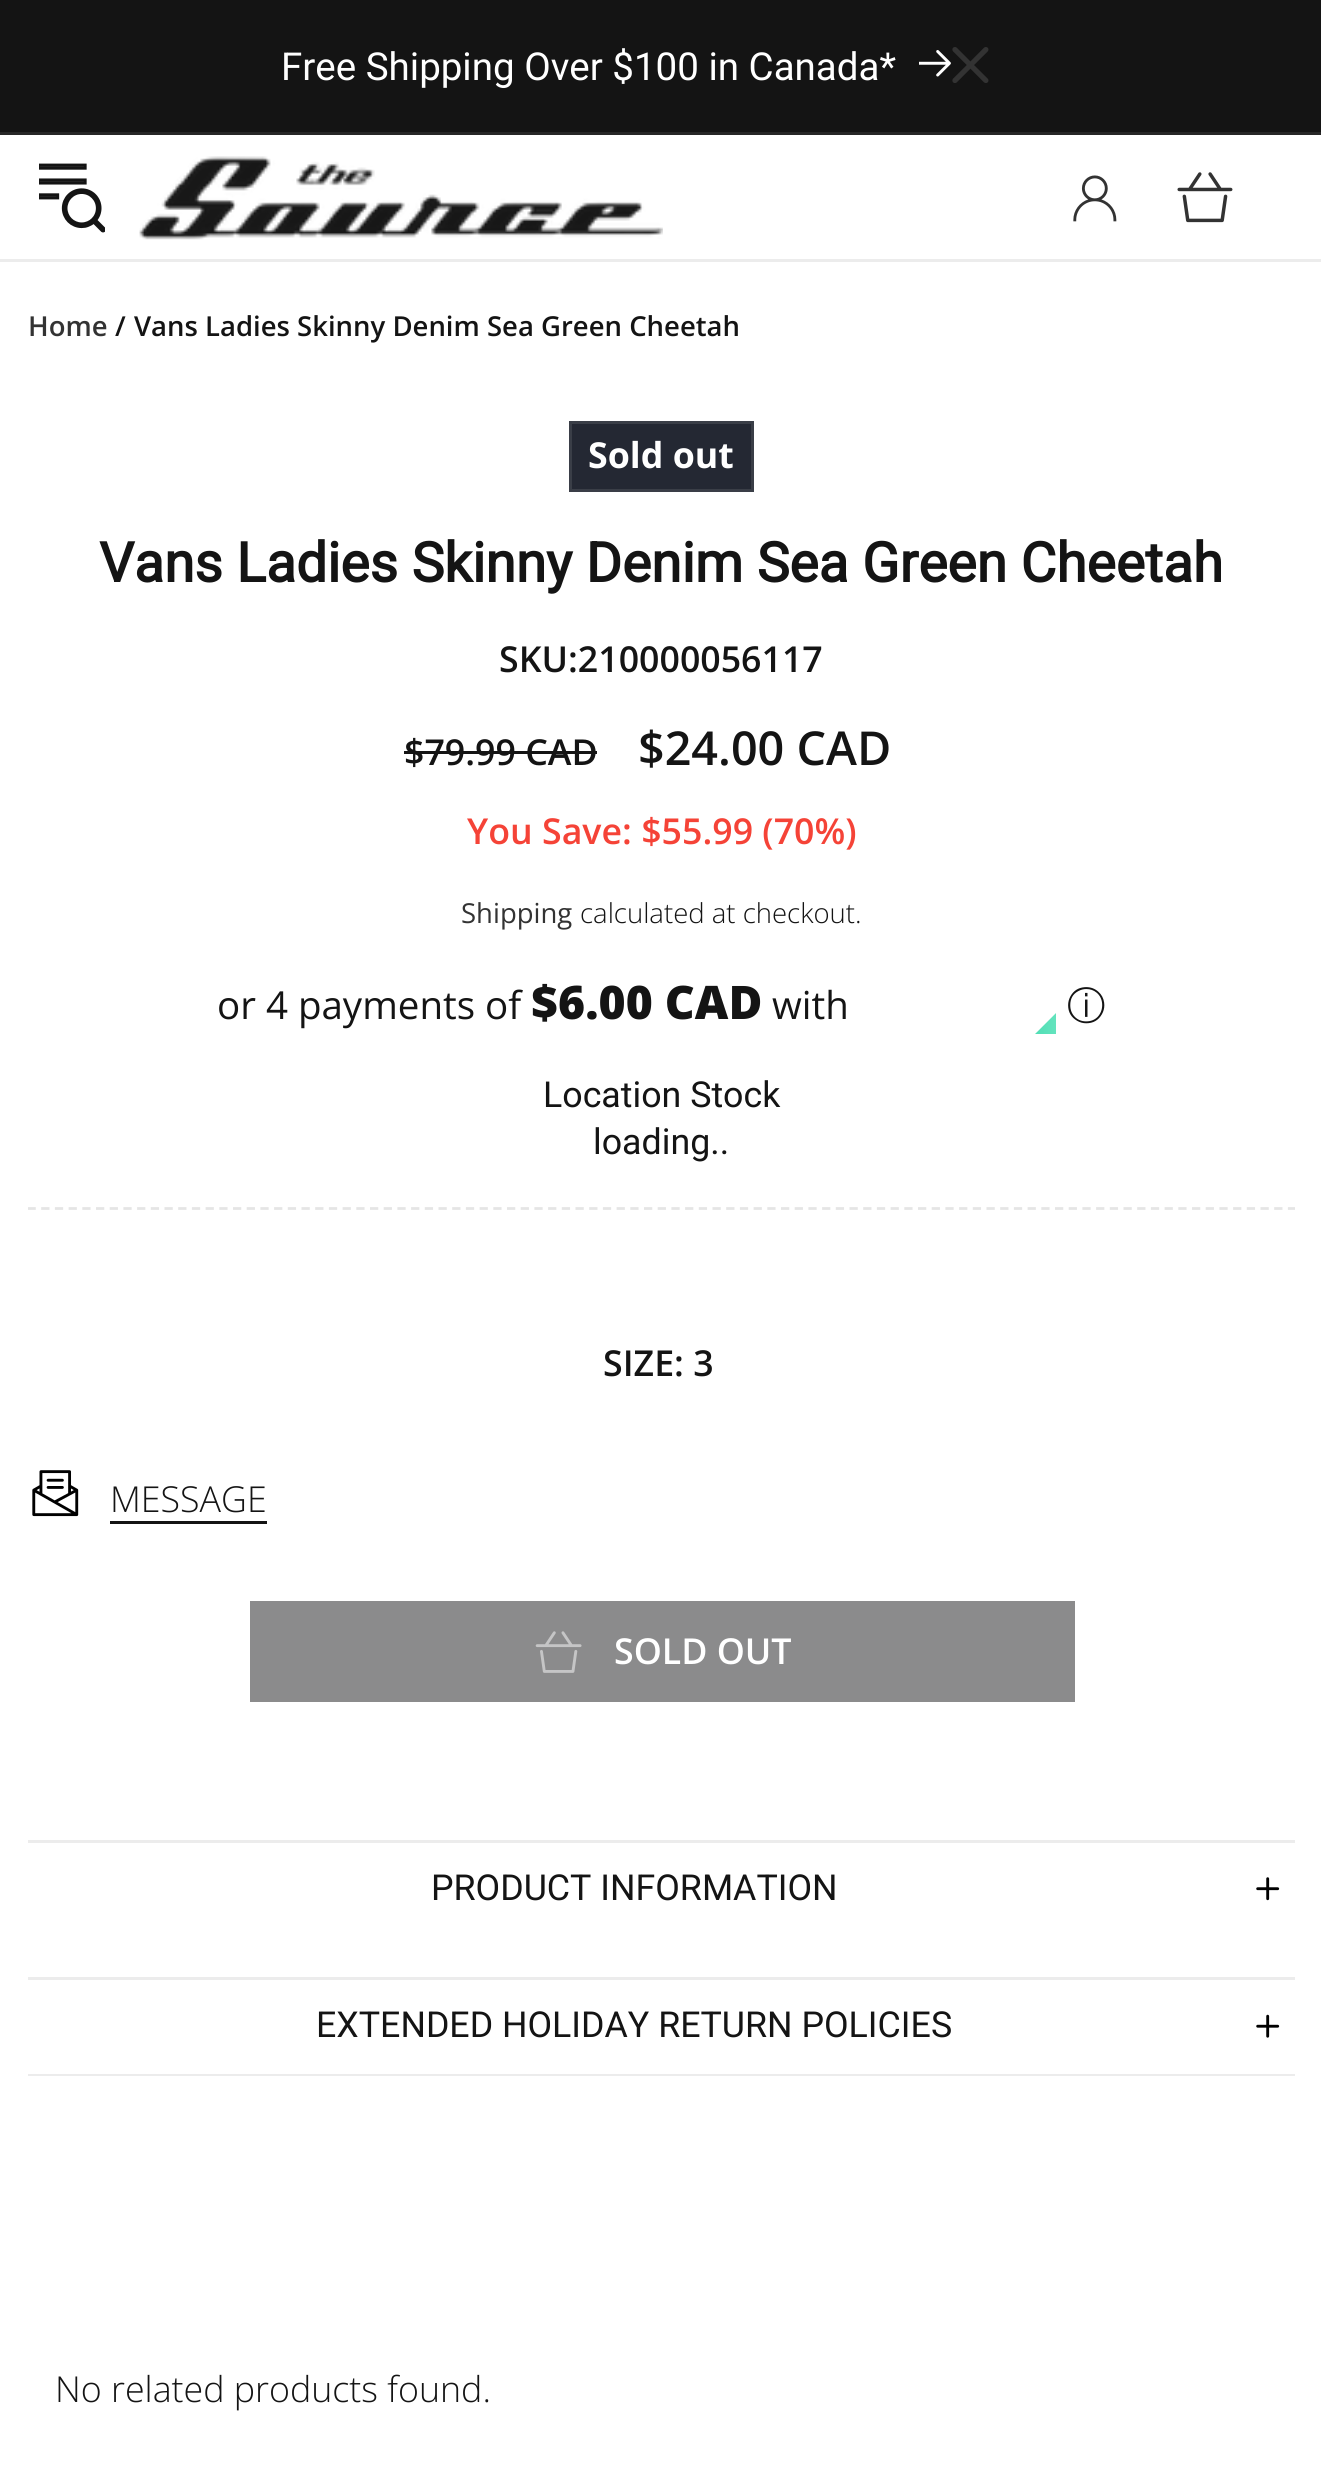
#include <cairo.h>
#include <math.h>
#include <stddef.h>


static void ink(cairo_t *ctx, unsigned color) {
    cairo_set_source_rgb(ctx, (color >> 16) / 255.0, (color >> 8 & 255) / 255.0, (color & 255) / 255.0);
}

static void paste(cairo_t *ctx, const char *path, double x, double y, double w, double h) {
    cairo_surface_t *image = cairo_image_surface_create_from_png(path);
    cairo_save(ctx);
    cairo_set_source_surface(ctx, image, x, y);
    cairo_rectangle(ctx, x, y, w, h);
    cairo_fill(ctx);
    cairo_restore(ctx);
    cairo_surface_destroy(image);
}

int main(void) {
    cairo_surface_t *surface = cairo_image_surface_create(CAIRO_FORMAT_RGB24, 1321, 2489);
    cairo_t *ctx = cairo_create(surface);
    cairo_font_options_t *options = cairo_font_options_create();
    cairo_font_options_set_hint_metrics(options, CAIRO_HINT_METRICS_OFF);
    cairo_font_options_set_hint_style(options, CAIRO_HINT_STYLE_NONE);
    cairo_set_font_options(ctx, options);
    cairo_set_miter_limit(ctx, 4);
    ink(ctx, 0xFFFFFF);
    cairo_paint(ctx);
    ink(ctx, 0x141414);
    cairo_rectangle(ctx, 0, 0, 1321, 132);
    cairo_fill(ctx);
    ink(ctx, 0x272727);
    cairo_rectangle(ctx, 0, 132, 1321, 3);
    cairo_fill(ctx);
    cairo_select_font_face(ctx, "Roboto", CAIRO_FONT_SLANT_NORMAL, CAIRO_FONT_WEIGHT_NORMAL);
    cairo_set_font_size(ctx, 38.5);
    ink(ctx, 0xFFFFFF);
    cairo_move_to(ctx, 281, 80);
    cairo_show_text(ctx, "Free Shipping Over $100 in Canada*");
    paste(ctx, "media/1.png", 919, 50, 32, 27);
    paste(ctx, "media/2.png", 952, 47, 37, 36);
    ink(ctx, 0xECECEC);
    cairo_rectangle(ctx, 0, 259, 1321, 3);
    cairo_fill(ctx);
    paste(ctx, "media/3.png", 39, 163, 66, 70);
    paste(ctx, "media/4.png", 139, 156, 524, 84);
    paste(ctx, "media/5.png", 1073, 175, 44, 47);
    paste(ctx, "media/6.png", 1177, 172, 56, 51);
    cairo_select_font_face(ctx, "Open Sans SemiBold", CAIRO_FONT_SLANT_NORMAL, CAIRO_FONT_WEIGHT_NORMAL);
    cairo_set_font_size(ctx, 27.5);
    ink(ctx, 0x333333);
    cairo_move_to(ctx, 28, 336);
    cairo_show_text(ctx, "Home");
    ink(ctx, 0x141414);
    cairo_move_to(ctx, 115, 336);
    cairo_show_text(ctx, "/");
    cairo_move_to(ctx, 134, 336);
    cairo_show_text(ctx, "Vans Ladies Skinny Denim Sea Green Cheetah");
    ink(ctx, 0x242833);
    cairo_rectangle(ctx, 570.5, 422.5, 182, 68);
    cairo_fill_preserve(ctx);
    ink(ctx, 0x3A3E47);
    cairo_set_line_width(ctx, 3);
    cairo_stroke(ctx);
    cairo_select_font_face(ctx, "Open Sans", CAIRO_FONT_SLANT_NORMAL, CAIRO_FONT_WEIGHT_BOLD);
    cairo_set_font_size(ctx, 35.75);
    ink(ctx, 0xFFFFFF);
    cairo_move_to(ctx, 588, 468);
    cairo_show_text(ctx, "Sold out");
    cairo_select_font_face(ctx, "Roboto", CAIRO_FONT_SLANT_NORMAL, CAIRO_FONT_WEIGHT_BOLD);
    cairo_set_font_size(ctx, 55);
    ink(ctx, 0x141414);
    cairo_move_to(ctx, 99, 582);
    cairo_show_text(ctx, "Vans Ladies Skinny Denim Sea Green Cheetah");
    cairo_select_font_face(ctx, "Open Sans SemiBold", CAIRO_FONT_SLANT_NORMAL, CAIRO_FONT_WEIGHT_NORMAL);
    cairo_set_font_size(ctx, 35.75);
    cairo_move_to(ctx, 499, 672);
    cairo_show_text(ctx, "SKU:210000056117");
    cairo_move_to(ctx, 404, 765);
    cairo_show_text(ctx, "$79.99 CAD");
    cairo_rectangle(ctx, 404, 751, 193, 3);
    cairo_fill(ctx);
    cairo_set_font_size(ctx, 46.75);
    cairo_move_to(ctx, 638, 765);
    cairo_show_text(ctx, "$24.00 CAD");
    cairo_set_font_size(ctx, 35.75);
    ink(ctx, 0xF54337);
    cairo_move_to(ctx, 467, 844);
    cairo_show_text(ctx, "You Save: $55.99 (70%)");
    cairo_select_font_face(ctx, "Open Sans", CAIRO_FONT_SLANT_NORMAL, CAIRO_FONT_WEIGHT_NORMAL);
    cairo_set_font_size(ctx, 27.5);
    ink(ctx, 0x333333);
    cairo_move_to(ctx, 461, 923);
    cairo_show_text(ctx, "Shipping");
    cairo_select_font_face(ctx, "Open Sans Light", CAIRO_FONT_SLANT_NORMAL, CAIRO_FONT_WEIGHT_NORMAL);
    ink(ctx, 0x141414);
    cairo_move_to(ctx, 580, 923);
    cairo_show_text(ctx, "calculated at checkout.");
    cairo_select_font_face(ctx, "Open Sans", CAIRO_FONT_SLANT_NORMAL, CAIRO_FONT_WEIGHT_NORMAL);
    cairo_set_font_size(ctx, 38.5);
    cairo_move_to(ctx, 217, 1019);
    cairo_show_text(ctx, "or 4 payments of");
    cairo_select_font_face(ctx, "Open Sans ExtraBold", CAIRO_FONT_SLANT_NORMAL, CAIRO_FONT_WEIGHT_NORMAL);
    cairo_set_font_size(ctx, 46.25);
    cairo_move_to(ctx, 531, 1019);
    cairo_show_text(ctx, "$6.00 CAD");
    cairo_select_font_face(ctx, "Open Sans", CAIRO_FONT_SLANT_NORMAL, CAIRO_FONT_WEIGHT_NORMAL);
    cairo_set_font_size(ctx, 38.5);
    cairo_move_to(ctx, 772, 1019);
    cairo_show_text(ctx, "with");
    cairo_select_font_face(ctx, "WenQuanYi Zen Hei Medium", CAIRO_FONT_SLANT_NORMAL, CAIRO_FONT_WEIGHT_NORMAL);
    cairo_move_to(ctx, 1067, 1019);
    cairo_show_text(ctx, "ⓘ");
    paste(ctx, "media/7.png", 1035, 1013, 21, 21);
    cairo_select_font_face(ctx, "Roboto", CAIRO_FONT_SLANT_NORMAL, CAIRO_FONT_WEIGHT_NORMAL);
    cairo_set_font_size(ctx, 35.75);
    cairo_move_to(ctx, 543, 1107);
    cairo_show_text(ctx, "Location Stock");
    cairo_move_to(ctx, 593, 1154);
    cairo_show_text(ctx, "loading..");
    cairo_save(ctx);
    cairo_rectangle(ctx, 28, 421, 1267, 1655);
    cairo_clip(ctx);
    cairo_new_path(ctx);
    cairo_move_to(ctx, 27.5, 1208.5);
    cairo_line_to(ctx, 1295, 1208.5);
    ink(ctx, 0xE5E5E5);
    cairo_set_line_width(ctx, 2.8);
    cairo_set_dash(ctx, (double[]){8.25, 5.45}, 2, 0);
    cairo_stroke(ctx);
    cairo_restore(ctx);
    cairo_select_font_face(ctx, "Open Sans SemiBold", CAIRO_FONT_SLANT_NORMAL, CAIRO_FONT_WEIGHT_NORMAL);
    cairo_move_to(ctx, 603, 1376);
    cairo_show_text(ctx, "SIZE: 3");
    paste(ctx, "media/8.png", 32, 1470, 47, 47);
    cairo_select_font_face(ctx, "Open Sans Light", CAIRO_FONT_SLANT_NORMAL, CAIRO_FONT_WEIGHT_NORMAL);
    cairo_move_to(ctx, 110, 1512);
    cairo_show_text(ctx, "MESSAGE");
    cairo_rectangle(ctx, 110, 1521, 157, 3);
    cairo_fill(ctx);
    ink(ctx, 0x8B8B8C);
    cairo_rectangle(ctx, 250, 1601, 825, 101);
    cairo_fill(ctx);
    paste(ctx, "media/9.png", 535, 1631, 47, 42);
    cairo_select_font_face(ctx, "Open Sans SemiBold", CAIRO_FONT_SLANT_NORMAL, CAIRO_FONT_WEIGHT_NORMAL);
    ink(ctx, 0xFFFFFF);
    cairo_move_to(ctx, 614, 1664);
    cairo_show_text(ctx, "SOLD OUT");
    ink(ctx, 0xECECEC);
    cairo_rectangle(ctx, 28, 1840, 1267, 3);
    cairo_fill(ctx);
    cairo_rectangle(ctx, 28, 1977, 1267, 3);
    cairo_fill(ctx);
    cairo_select_font_face(ctx, "Roboto", CAIRO_FONT_SLANT_NORMAL, CAIRO_FONT_WEIGHT_NORMAL);
    ink(ctx, 0x141414);
    cairo_move_to(ctx, 431, 1900);
    cairo_show_text(ctx, "PRODUCT INFORMATION");
    paste(ctx, "media/10.png", 1256, 1877, 24, 24);
    ink(ctx, 0xECECEC);
    cairo_rectangle(ctx, 28, 2074, 1267, 2);
    cairo_fill(ctx);
    ink(ctx, 0x141414);
    cairo_move_to(ctx, 316, 2037);
    cairo_show_text(ctx, "EXTENDED HOLIDAY RETURN POLICIES");
    paste(ctx, "media/11.png", 1256, 2014, 24, 24);
    cairo_select_font_face(ctx, "Open Sans Light", CAIRO_FONT_SLANT_NORMAL, CAIRO_FONT_WEIGHT_NORMAL);
    cairo_move_to(ctx, 55, 2402);
    cairo_show_text(ctx, "No related products found.");
    cairo_surface_write_to_png(surface, "image.png");
    cairo_font_options_destroy(options);
    cairo_destroy(ctx);
    cairo_surface_destroy(surface);
    return 0;
}
